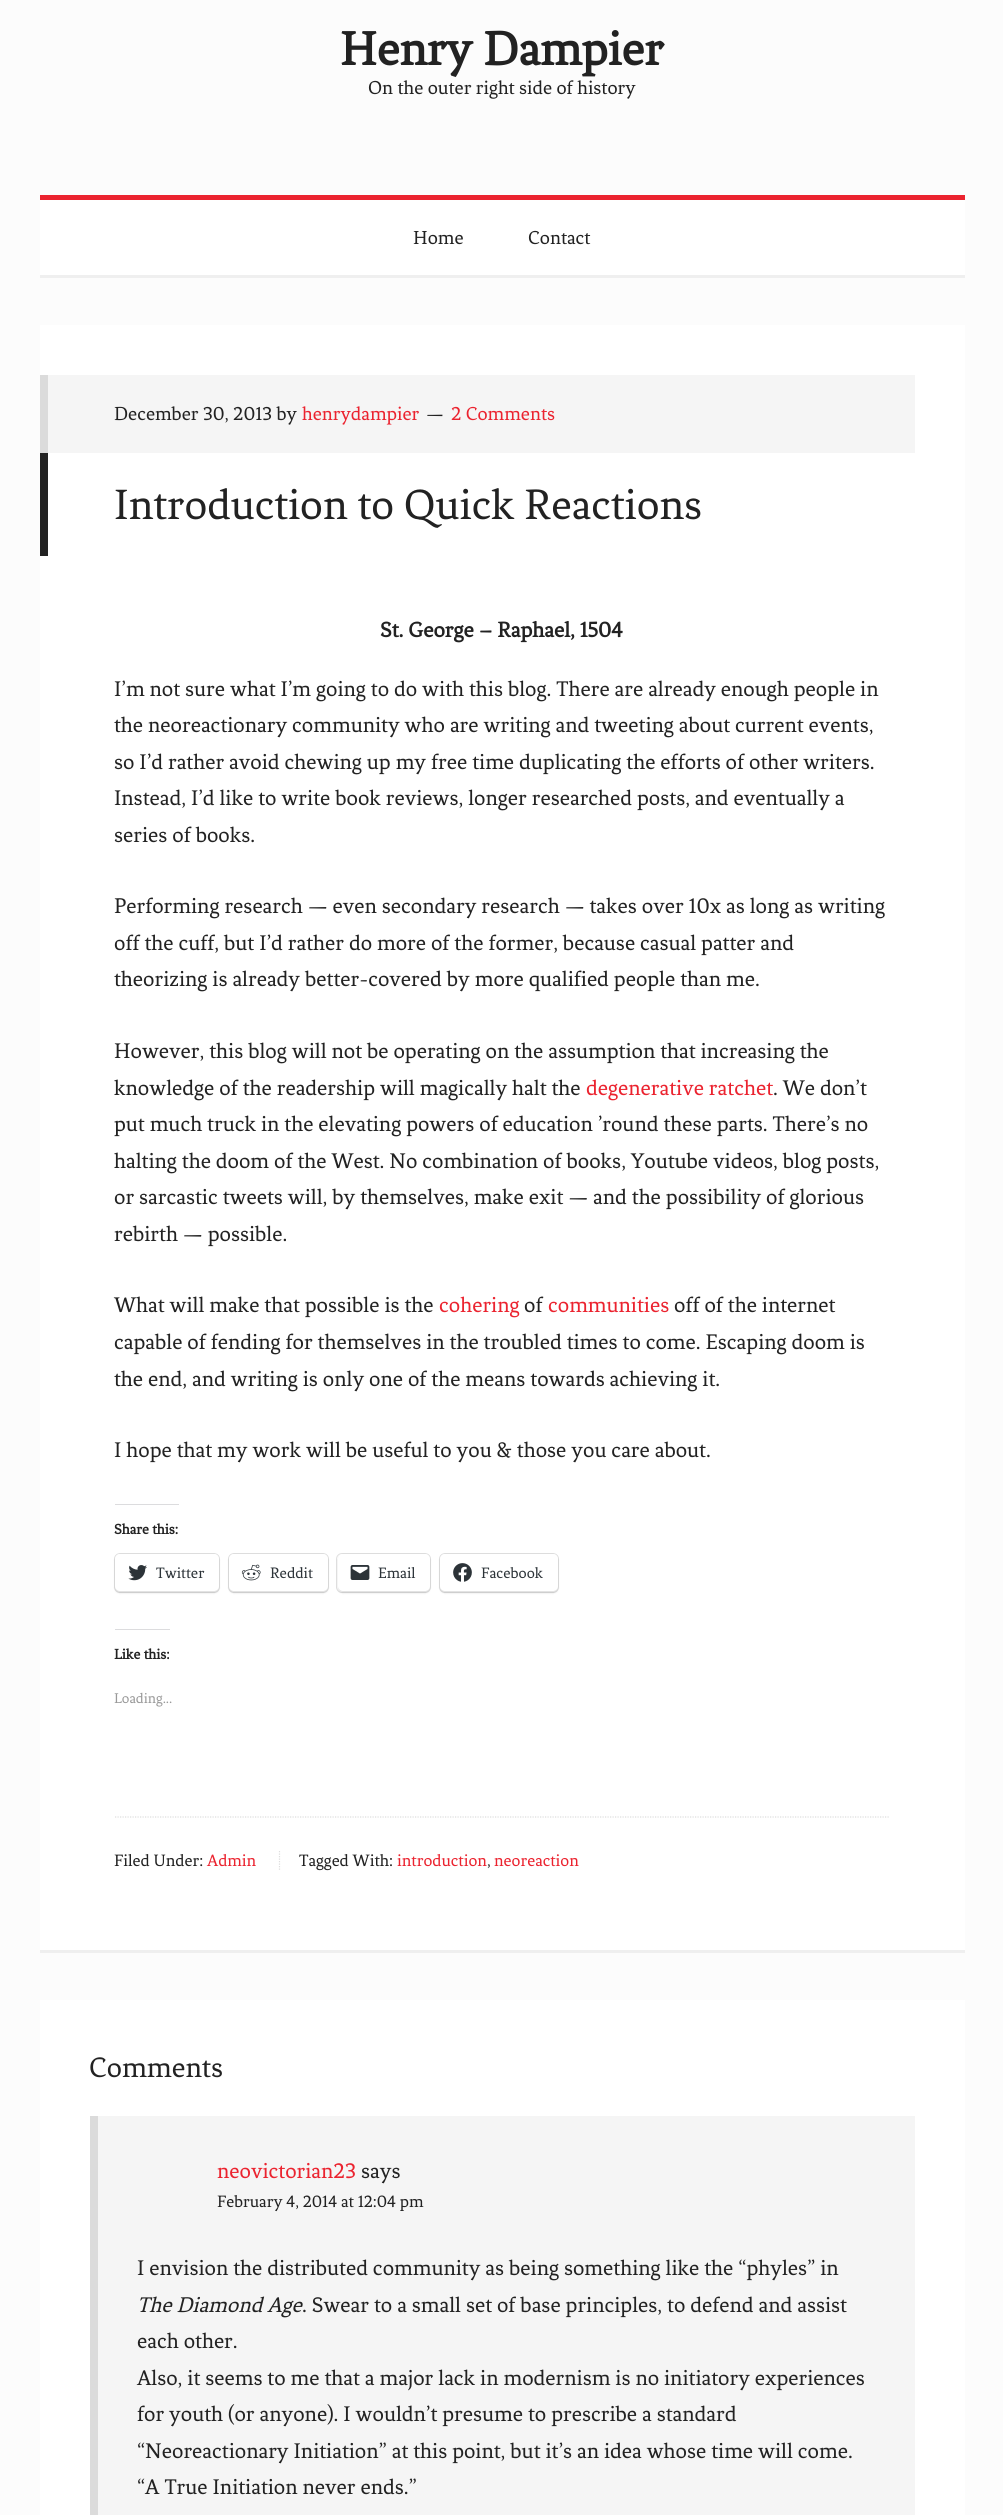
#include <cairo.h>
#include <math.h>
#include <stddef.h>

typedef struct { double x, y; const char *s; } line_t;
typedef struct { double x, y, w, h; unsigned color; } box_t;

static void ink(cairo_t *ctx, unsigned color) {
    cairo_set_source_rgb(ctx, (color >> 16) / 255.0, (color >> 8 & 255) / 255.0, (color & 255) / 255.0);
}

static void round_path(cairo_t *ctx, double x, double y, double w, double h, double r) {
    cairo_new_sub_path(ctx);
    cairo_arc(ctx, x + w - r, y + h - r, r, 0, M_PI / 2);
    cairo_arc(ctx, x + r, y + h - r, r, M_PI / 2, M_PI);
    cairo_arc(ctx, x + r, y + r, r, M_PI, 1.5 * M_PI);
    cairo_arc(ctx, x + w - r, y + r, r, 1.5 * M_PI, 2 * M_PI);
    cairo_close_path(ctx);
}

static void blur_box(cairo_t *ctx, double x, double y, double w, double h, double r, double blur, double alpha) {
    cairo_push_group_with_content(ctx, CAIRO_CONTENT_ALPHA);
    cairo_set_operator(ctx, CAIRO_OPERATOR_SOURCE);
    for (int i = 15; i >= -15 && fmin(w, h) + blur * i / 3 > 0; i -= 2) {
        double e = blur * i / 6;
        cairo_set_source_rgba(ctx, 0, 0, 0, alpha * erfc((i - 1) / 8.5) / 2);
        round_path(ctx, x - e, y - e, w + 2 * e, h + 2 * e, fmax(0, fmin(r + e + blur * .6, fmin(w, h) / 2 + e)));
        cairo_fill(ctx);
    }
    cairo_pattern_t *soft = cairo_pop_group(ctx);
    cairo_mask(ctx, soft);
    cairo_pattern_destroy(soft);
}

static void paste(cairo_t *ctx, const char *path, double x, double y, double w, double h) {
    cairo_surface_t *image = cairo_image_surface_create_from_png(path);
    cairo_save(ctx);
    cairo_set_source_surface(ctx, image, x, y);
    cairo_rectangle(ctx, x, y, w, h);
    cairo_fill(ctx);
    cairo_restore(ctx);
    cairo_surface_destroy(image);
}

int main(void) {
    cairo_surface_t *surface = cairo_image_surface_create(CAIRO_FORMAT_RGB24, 1003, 2515);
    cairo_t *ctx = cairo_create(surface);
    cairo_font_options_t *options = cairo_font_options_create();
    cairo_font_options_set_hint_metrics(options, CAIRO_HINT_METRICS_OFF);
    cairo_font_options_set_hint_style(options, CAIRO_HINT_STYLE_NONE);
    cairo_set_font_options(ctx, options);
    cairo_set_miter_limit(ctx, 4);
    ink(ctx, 0xFCFCFC);
    cairo_paint(ctx);
    cairo_select_font_face(ctx, "Fenix", CAIRO_FONT_SLANT_NORMAL, CAIRO_FONT_WEIGHT_BOLD);
    cairo_set_font_size(ctx, 50);
    ink(ctx, 0x222222);
    cairo_move_to(ctx, 340, 65);
    cairo_show_text(ctx, "Henry Dampier");
    cairo_select_font_face(ctx, "Fenix", CAIRO_FONT_SLANT_NORMAL, CAIRO_FONT_WEIGHT_NORMAL);
    cairo_set_font_size(ctx, 20);
    cairo_move_to(ctx, 368, 94);
    cairo_show_text(ctx, "On the outer right side of history");
    {
        static const box_t items[] = {
            {40, 275, 925, 3, 0xEFEFEF},
            {40, 200, 925, 75, 0xFFFFFF},
            {40, 195, 925, 5, 0xEB232F},
        };
        for (size_t i = 0; i < sizeof items / sizeof *items; i++) {
            ink(ctx, items[i].color);
            cairo_rectangle(ctx, items[i].x, items[i].y, items[i].w, items[i].h);
            cairo_fill(ctx);
        }
    }
    ink(ctx, 0x222222);
    cairo_move_to(ctx, 413, 244);
    cairo_show_text(ctx, "Home");
    cairo_move_to(ctx, 528, 244);
    cairo_show_text(ctx, "Contact");
    {
        static const box_t items[] = {
            {40, 1950, 925, 3, 0xEFEFEF},
            {40, 325, 925, 1625, 0xFFFFFF},
            {48, 375, 867, 78, 0xF5F5F5},
            {40, 375, 8, 78, 0xDBDBDB},
        };
        for (size_t i = 0; i < sizeof items / sizeof *items; i++) {
            ink(ctx, items[i].color);
            cairo_rectangle(ctx, items[i].x, items[i].y, items[i].w, items[i].h);
            cairo_fill(ctx);
        }
    }
    ink(ctx, 0x222222);
    cairo_move_to(ctx, 114, 420);
    cairo_show_text(ctx, "December 30, 2013 by");
    ink(ctx, 0xEB232F);
    cairo_move_to(ctx, 302, 420);
    cairo_show_text(ctx, "henrydampier");
    ink(ctx, 0x222222);
    cairo_move_to(ctx, 426, 420);
    cairo_show_text(ctx, "—");
    ink(ctx, 0xEB232F);
    cairo_move_to(ctx, 451, 420);
    cairo_show_text(ctx, "2 Comments");
    ink(ctx, 0x222222);
    cairo_rectangle(ctx, 40, 453, 8, 103);
    cairo_fill(ctx);
    cairo_set_font_size(ctx, 45);
    cairo_move_to(ctx, 114, 519);
    cairo_show_text(ctx, "Introduction to Quick Reactions");
    cairo_select_font_face(ctx, "Fenix", CAIRO_FONT_SLANT_NORMAL, CAIRO_FONT_WEIGHT_BOLD);
    cairo_set_font_size(ctx, 22.5);
    cairo_move_to(ctx, 380, 637);
    cairo_show_text(ctx, "St. George – Raphael, 1504");
    cairo_select_font_face(ctx, "Fenix", CAIRO_FONT_SLANT_NORMAL, CAIRO_FONT_WEIGHT_NORMAL);
    {
        static const line_t items[] = {
            {114, 696, "I’m not sure what I’m going to do with this blog. There are already enough people in"},
            {114, 732, "the neoreactionary community who are writing and tweeting about current events,"},
            {114, 769, "so I’d rather avoid chewing up my free time duplicating the efforts of other writers."},
            {114, 805, "Instead, I’d like to write book reviews, longer researched posts, and eventually a"},
            {114, 842, "series of books."},
            {114, 913, "Performing research — even secondary research — takes over 10x as long as writing"},
            {114, 950, "off the cuff, but I’d rather do more of the former, because casual patter and"},
            {114, 986, "theorizing is already better-covered by more qualified people than me."},
            {114, 1058, "However, this blog will not be operating on the assumption that increasing the"},
            {114, 1095, "knowledge of the readership will magically halt the"},
        };
        for (size_t i = 0; i < sizeof items / sizeof *items; i++) {
            cairo_move_to(ctx, items[i].x, items[i].y);
            cairo_show_text(ctx, items[i].s);
        }
    }
    ink(ctx, 0xEB232F);
    cairo_move_to(ctx, 586, 1095);
    cairo_show_text(ctx, "degenerative ratchet");
    ink(ctx, 0x222222);
    {
        static const line_t items[] = {
            {773, 1095, ". We don’t"},
            {114, 1131, "put much truck in the elevating powers of education ’round these parts. There’s no"},
            {114, 1168, "halting the doom of the West. No combination of books, Youtube videos, blog posts,"},
            {114, 1204, "or sarcastic tweets will, by themselves, make exit — and the possibility of glorious"},
            {114, 1241, "rebirth — possible."},
            {114, 1312, "What will make that possible is the"},
        };
        for (size_t i = 0; i < sizeof items / sizeof *items; i++) {
            cairo_move_to(ctx, items[i].x, items[i].y);
            cairo_show_text(ctx, items[i].s);
        }
    }
    ink(ctx, 0xEB232F);
    cairo_move_to(ctx, 439, 1312);
    cairo_show_text(ctx, "cohering");
    ink(ctx, 0x222222);
    cairo_move_to(ctx, 524, 1312);
    cairo_show_text(ctx, "of");
    ink(ctx, 0xEB232F);
    cairo_move_to(ctx, 548, 1312);
    cairo_show_text(ctx, "communities");
    ink(ctx, 0x222222);
    {
        static const line_t items[] = {
            {674, 1312, "off of the internet"},
            {114, 1349, "capable of fending for themselves in the troubled times to come. Escaping doom is"},
            {114, 1386, "the end, and writing is only one of the means towards achieving it."},
            {114, 1457, "I hope that my work will be useful to you & those you care about."},
        };
        for (size_t i = 0; i < sizeof items / sizeof *items; i++) {
            cairo_move_to(ctx, items[i].x, items[i].y);
            cairo_show_text(ctx, items[i].s);
        }
    }
    ink(ctx, 0xDCDCDE);
    cairo_rectangle(ctx, 115, 1504, 64, 1);
    cairo_fill(ctx);
    cairo_select_font_face(ctx, "Fenix", CAIRO_FONT_SLANT_NORMAL, CAIRO_FONT_WEIGHT_BOLD);
    cairo_set_font_size(ctx, 15);
    ink(ctx, 0x222222);
    cairo_move_to(ctx, 114, 1534);
    cairo_show_text(ctx, "Share this:");
    round_path(ctx, 114.5, 1553.5, 105, 39, 5.5);
    ink(ctx, 0xE0E0E0);
    cairo_set_line_width(ctx, 1);
    cairo_stroke(ctx);
    ink(ctx, 0x000000);
    blur_box(ctx, 115, 1555, 104, 38, 5, 1, 0.12);
    ink(ctx, 0xFFFFFF);
    round_path(ctx, 115, 1554, 104, 37, 5);
    cairo_fill(ctx);
    paste(ctx, "media/1.png", 128, 1565, 19, 16);
    cairo_select_font_face(ctx, "Fenix", CAIRO_FONT_SLANT_NORMAL, CAIRO_FONT_WEIGHT_NORMAL);
    cairo_set_font_size(ctx, 16);
    ink(ctx, 0x2C3338);
    cairo_move_to(ctx, 156, 1578);
    cairo_show_text(ctx, "Twitter");
    round_path(ctx, 228.5, 1553.5, 100, 39, 5.5);
    ink(ctx, 0xE0E0E0);
    cairo_stroke(ctx);
    ink(ctx, 0x000000);
    blur_box(ctx, 229, 1555, 99, 38, 5, 1, 0.12);
    ink(ctx, 0xFFFFFF);
    round_path(ctx, 229, 1554, 99, 37, 5);
    cairo_fill(ctx);
    paste(ctx, "media/2.png", 241, 1564, 20, 17);
    ink(ctx, 0x2C3338);
    cairo_move_to(ctx, 270, 1578);
    cairo_show_text(ctx, "Reddit");
    round_path(ctx, 336.5, 1553.5, 94, 39, 5.5);
    ink(ctx, 0xE0E0E0);
    cairo_stroke(ctx);
    ink(ctx, 0x000000);
    blur_box(ctx, 338, 1555, 92, 38, 5, 1, 0.12);
    ink(ctx, 0xFFFFFF);
    round_path(ctx, 338, 1554, 92, 37, 5);
    cairo_fill(ctx);
    paste(ctx, "media/3.png", 350, 1565, 20, 15);
    ink(ctx, 0x2C3338);
    cairo_move_to(ctx, 378, 1578);
    cairo_show_text(ctx, "Email");
    round_path(ctx, 439.5, 1553.5, 119, 39, 5.5);
    ink(ctx, 0xE0E0E0);
    cairo_stroke(ctx);
    ink(ctx, 0x000000);
    blur_box(ctx, 440, 1555, 118, 38, 5, 1, 0.12);
    ink(ctx, 0xFFFFFF);
    round_path(ctx, 440, 1554, 118, 37, 5);
    cairo_fill(ctx);
    paste(ctx, "media/4.png", 453, 1563, 19, 19);
    ink(ctx, 0x2C3338);
    cairo_move_to(ctx, 481, 1578);
    cairo_show_text(ctx, "Facebook");
    ink(ctx, 0xDCDCDE);
    cairo_rectangle(ctx, 115, 1629, 55, 1);
    cairo_fill(ctx);
    cairo_select_font_face(ctx, "Fenix", CAIRO_FONT_SLANT_NORMAL, CAIRO_FONT_WEIGHT_BOLD);
    cairo_set_font_size(ctx, 15);
    ink(ctx, 0x222222);
    cairo_move_to(ctx, 114, 1659);
    cairo_show_text(ctx, "Like this:");
    cairo_select_font_face(ctx, "Fenix", CAIRO_FONT_SLANT_NORMAL, CAIRO_FONT_WEIGHT_NORMAL);
    ink(ctx, 0x999999);
    cairo_move_to(ctx, 114, 1703);
    cairo_show_text(ctx, "Loading...");
    cairo_new_path(ctx);
    cairo_move_to(ctx, 115, 1817);
    cairo_line_to(ctx, 890, 1817);
    ink(ctx, 0xDDDDDD);
    cairo_set_line_width(ctx, 1.2);
    cairo_set_dash(ctx, (double[]){1.25, 1.25}, 2, 0);
    cairo_stroke(ctx);
    cairo_set_font_size(ctx, 17.5);
    ink(ctx, 0x222222);
    cairo_move_to(ctx, 114, 1866);
    cairo_show_text(ctx, "Filed Under:");
    ink(ctx, 0xEB232F);
    cairo_move_to(ctx, 207, 1866);
    cairo_show_text(ctx, "Admin");
    ink(ctx, 0x222222);
    cairo_move_to(ctx, 299, 1866);
    cairo_show_text(ctx, "Tagged With:");
    cairo_new_path(ctx);
    cairo_move_to(ctx, 279.5, 1851);
    cairo_line_to(ctx, 279.5, 1870);
    ink(ctx, 0xDDDDDD);
    cairo_stroke(ctx);
    ink(ctx, 0xEB232F);
    cairo_move_to(ctx, 397, 1866);
    cairo_show_text(ctx, "introduction");
    ink(ctx, 0x222222);
    cairo_move_to(ctx, 487, 1866);
    cairo_show_text(ctx, ",");
    ink(ctx, 0xEB232F);
    cairo_move_to(ctx, 494, 1866);
    cairo_show_text(ctx, "neoreaction");
    ink(ctx, 0xFFFFFF);
    cairo_rectangle(ctx, 40, 2000, 925, 515);
    cairo_fill(ctx);
    cairo_set_font_size(ctx, 30);
    ink(ctx, 0x222222);
    cairo_move_to(ctx, 89, 2077);
    cairo_show_text(ctx, "Comments");
    ink(ctx, 0xF5F5F5);
    cairo_rectangle(ctx, 98, 2116, 817, 399);
    cairo_fill(ctx);
    ink(ctx, 0xDBDBDB);
    cairo_rectangle(ctx, 90, 2116, 8, 399);
    cairo_fill(ctx);
    cairo_set_font_size(ctx, 22.5);
    ink(ctx, 0xEB232F);
    cairo_move_to(ctx, 217, 2178);
    cairo_show_text(ctx, "neovictorian23");
    ink(ctx, 0x222222);
    cairo_move_to(ctx, 361, 2178);
    cairo_show_text(ctx, "says");
    cairo_set_font_size(ctx, 17.5);
    cairo_move_to(ctx, 217, 2207);
    cairo_show_text(ctx, "February 4, 2014 at 12:04 pm");
    cairo_set_font_size(ctx, 22.5);
    cairo_move_to(ctx, 137, 2275);
    cairo_show_text(ctx, "I envision the distributed community as being something like the “phyles” in");
    cairo_select_font_face(ctx, "Fenix", CAIRO_FONT_SLANT_ITALIC, CAIRO_FONT_WEIGHT_NORMAL);
    cairo_move_to(ctx, 137, 2312);
    cairo_show_text(ctx, "The Diamond Age");
    cairo_select_font_face(ctx, "Fenix", CAIRO_FONT_SLANT_NORMAL, CAIRO_FONT_WEIGHT_NORMAL);
    {
        static const line_t items[] = {
            {302, 2312, ". Swear to a small set of base principles, to defend and assist"},
            {137, 2348, "each other."},
            {137, 2385, "Also, it seems to me that a major lack in modernism is no initiatory experiences"},
            {137, 2421, "for youth (or anyone). I wouldn’t presume to prescribe a standard"},
            {137, 2458, "“Neoreactionary Initiation” at this point, but it’s an idea whose time will come."},
            {137, 2494, "“A True Initiation never ends.”"},
        };
        for (size_t i = 0; i < sizeof items / sizeof *items; i++) {
            cairo_move_to(ctx, items[i].x, items[i].y);
            cairo_show_text(ctx, items[i].s);
        }
    }
    cairo_surface_write_to_png(surface, "image.png");
    cairo_font_options_destroy(options);
    cairo_destroy(ctx);
    cairo_surface_destroy(surface);
    return 0;
}
